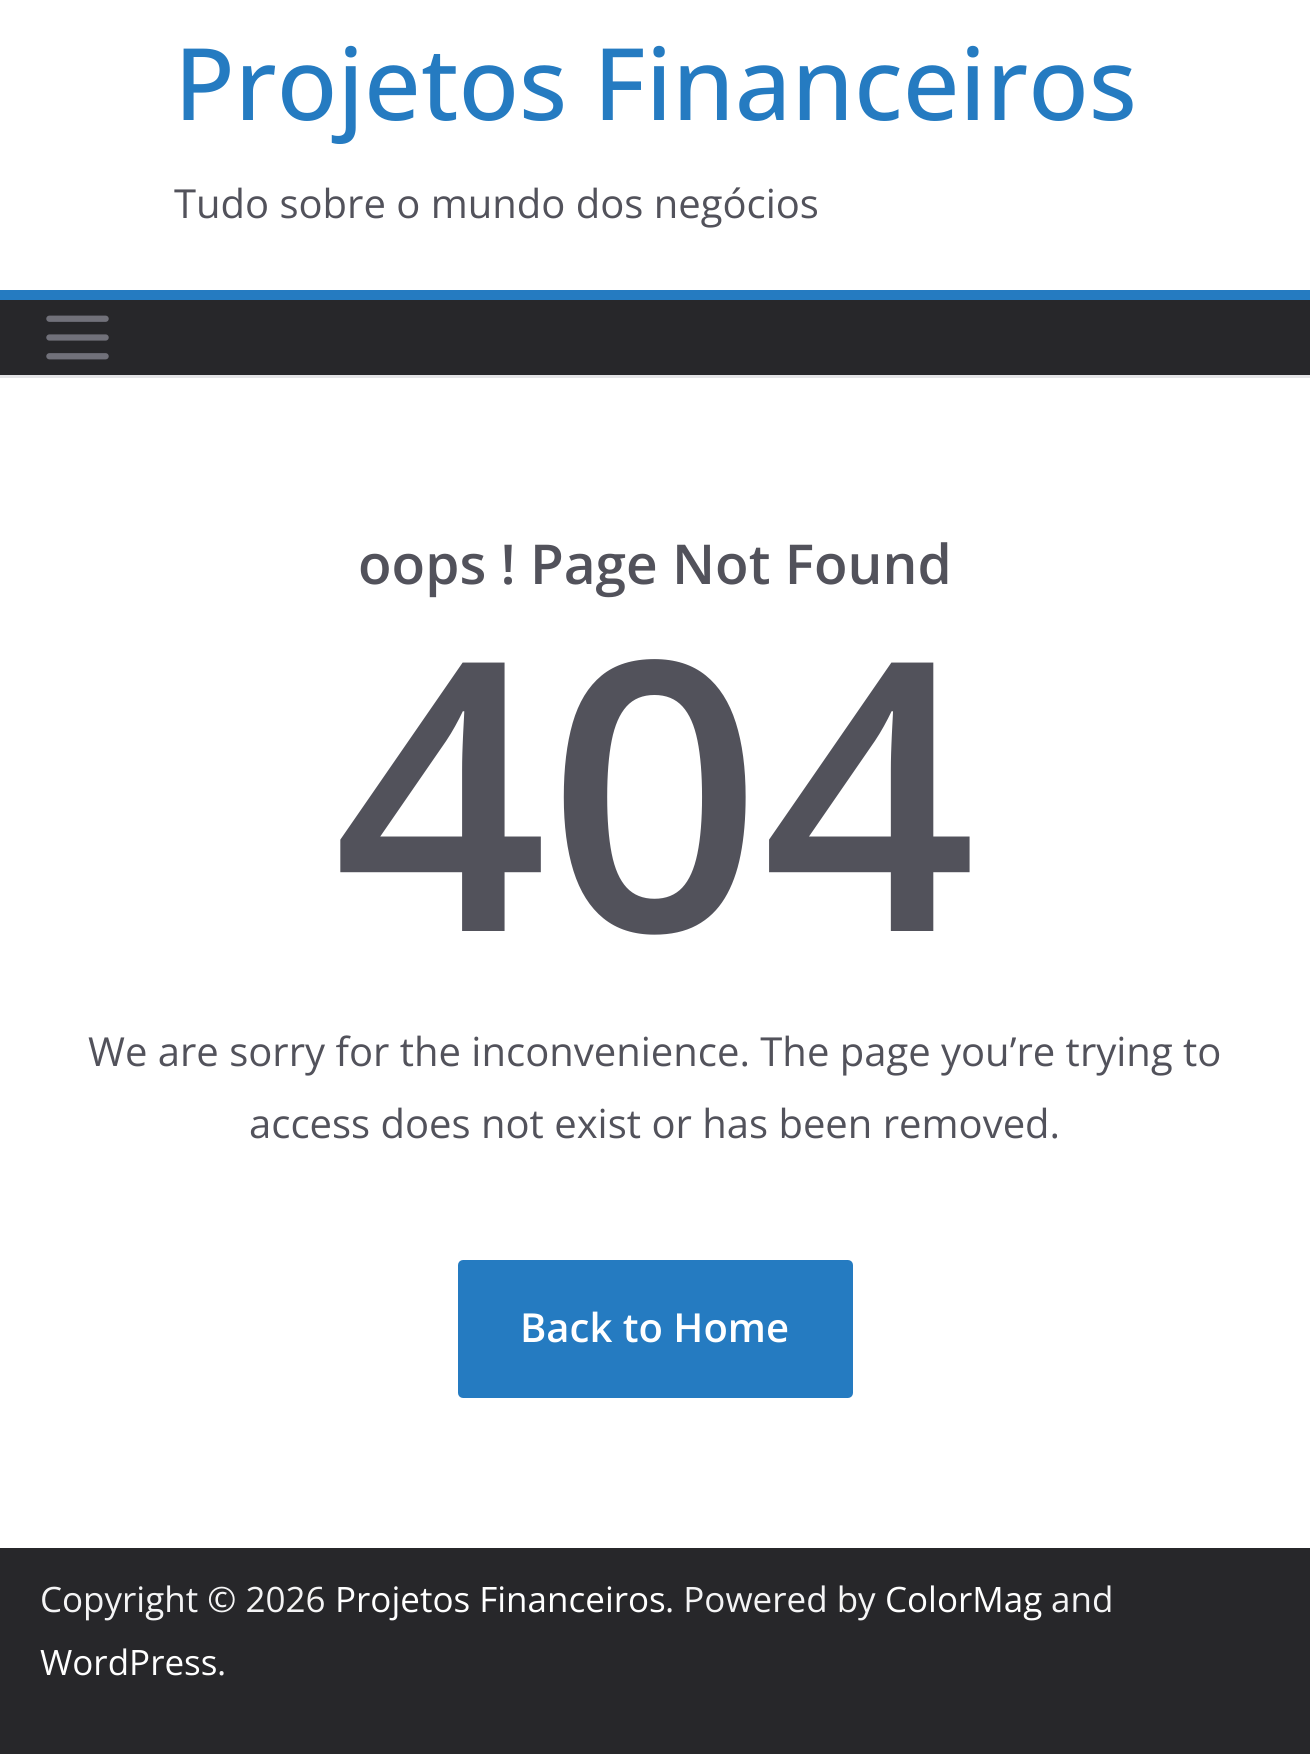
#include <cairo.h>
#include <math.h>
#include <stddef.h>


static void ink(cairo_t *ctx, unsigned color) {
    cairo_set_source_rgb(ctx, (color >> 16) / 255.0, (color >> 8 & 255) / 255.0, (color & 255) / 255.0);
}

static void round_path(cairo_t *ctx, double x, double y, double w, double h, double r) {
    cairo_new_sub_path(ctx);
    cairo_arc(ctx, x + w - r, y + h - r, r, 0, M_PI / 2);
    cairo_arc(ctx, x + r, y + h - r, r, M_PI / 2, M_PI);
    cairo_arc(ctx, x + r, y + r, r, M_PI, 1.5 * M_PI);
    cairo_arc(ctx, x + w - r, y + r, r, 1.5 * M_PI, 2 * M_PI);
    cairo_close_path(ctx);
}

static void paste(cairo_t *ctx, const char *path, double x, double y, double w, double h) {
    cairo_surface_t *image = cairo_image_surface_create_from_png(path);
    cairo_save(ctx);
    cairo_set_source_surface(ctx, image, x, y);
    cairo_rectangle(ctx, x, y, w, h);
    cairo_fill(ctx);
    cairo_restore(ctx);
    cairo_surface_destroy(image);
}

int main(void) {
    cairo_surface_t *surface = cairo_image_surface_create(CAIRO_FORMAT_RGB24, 1310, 1754);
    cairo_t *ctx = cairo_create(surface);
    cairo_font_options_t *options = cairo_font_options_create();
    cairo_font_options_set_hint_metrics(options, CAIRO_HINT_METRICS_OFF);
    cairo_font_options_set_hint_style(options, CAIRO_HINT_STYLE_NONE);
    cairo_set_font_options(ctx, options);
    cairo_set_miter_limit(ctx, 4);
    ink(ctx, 0xFFFFFF);
    cairo_paint(ctx);
    ink(ctx, 0xE4E4E7);
    cairo_rectangle(ctx, 0, 375, 1310, 3);
    cairo_fill(ctx);
    cairo_select_font_face(ctx, "Open Sans Medium", CAIRO_FONT_SLANT_NORMAL, CAIRO_FONT_WEIGHT_NORMAL);
    cairo_set_font_size(ctx, 100);
    ink(ctx, 0x257BC1);
    cairo_move_to(ctx, 174, 120);
    cairo_show_text(ctx, "Projetos Financeiros");
    cairo_select_font_face(ctx, "Open Sans", CAIRO_FONT_SLANT_NORMAL, CAIRO_FONT_WEIGHT_NORMAL);
    cairo_set_font_size(ctx, 40);
    ink(ctx, 0x52525B);
    cairo_move_to(ctx, 174, 218);
    cairo_show_text(ctx, "Tudo sobre o mundo dos negócios");
    ink(ctx, 0x27272A);
    cairo_rectangle(ctx, 0, 300, 1310, 75);
    cairo_fill(ctx);
    ink(ctx, 0x257BC1);
    cairo_rectangle(ctx, 0, 290, 1310, 10);
    cairo_fill(ctx);
    paste(ctx, "media/1.png", 46, 315, 63, 45);
    cairo_select_font_face(ctx, "Open Sans SemiBold", CAIRO_FONT_SLANT_NORMAL, CAIRO_FONT_WEIGHT_NORMAL);
    cairo_set_font_size(ctx, 55);
    ink(ctx, 0x52525B);
    cairo_move_to(ctx, 358, 584);
    cairo_show_text(ctx, "oops ! Page Not Found");
    cairo_set_font_size(ctx, 375);
    cairo_move_to(ctx, 333, 931);
    cairo_show_text(ctx, "404");
    cairo_select_font_face(ctx, "Open Sans", CAIRO_FONT_SLANT_NORMAL, CAIRO_FONT_WEIGHT_NORMAL);
    cairo_set_font_size(ctx, 40);
    cairo_move_to(ctx, 88, 1066);
    cairo_show_text(ctx, "We are sorry for the inconvenience. The page you’re trying to");
    cairo_move_to(ctx, 249, 1138);
    cairo_show_text(ctx, "access does not exist or has been removed.");
    ink(ctx, 0x257BC1);
    round_path(ctx, 459.5, 1261.5, 392, 135, 3.5);
    cairo_fill_preserve(ctx);
    cairo_set_line_width(ctx, 3);
    cairo_stroke(ctx);
    cairo_select_font_face(ctx, "Open Sans SemiBold", CAIRO_FONT_SLANT_NORMAL, CAIRO_FONT_WEIGHT_NORMAL);
    ink(ctx, 0xFFFFFF);
    cairo_move_to(ctx, 520, 1342);
    cairo_show_text(ctx, "Back to Home");
    ink(ctx, 0x27272A);
    cairo_rectangle(ctx, 0, 1548, 1310, 206);
    cairo_fill(ctx);
    cairo_select_font_face(ctx, "Open Sans", CAIRO_FONT_SLANT_NORMAL, CAIRO_FONT_WEIGHT_NORMAL);
    cairo_set_font_size(ctx, 35);
    ink(ctx, 0xF4F4F5);
    cairo_move_to(ctx, 40, 1612);
    cairo_show_text(ctx, "Copyright © 2026");
    ink(ctx, 0xFFFFFF);
    cairo_move_to(ctx, 335, 1612);
    cairo_show_text(ctx, "Projetos Financeiros");
    ink(ctx, 0xF4F4F5);
    cairo_move_to(ctx, 665, 1612);
    cairo_show_text(ctx, ". Powered by");
    ink(ctx, 0xFFFFFF);
    cairo_move_to(ctx, 885, 1612);
    cairo_show_text(ctx, "ColorMag");
    ink(ctx, 0xF4F4F5);
    cairo_move_to(ctx, 1051, 1612);
    cairo_show_text(ctx, "and");
    ink(ctx, 0xFFFFFF);
    cairo_move_to(ctx, 40, 1675);
    cairo_show_text(ctx, "WordPress");
    ink(ctx, 0xF4F4F5);
    cairo_move_to(ctx, 217, 1675);
    cairo_show_text(ctx, ".");
    cairo_surface_write_to_png(surface, "image.png");
    cairo_font_options_destroy(options);
    cairo_destroy(ctx);
    cairo_surface_destroy(surface);
    return 0;
}
